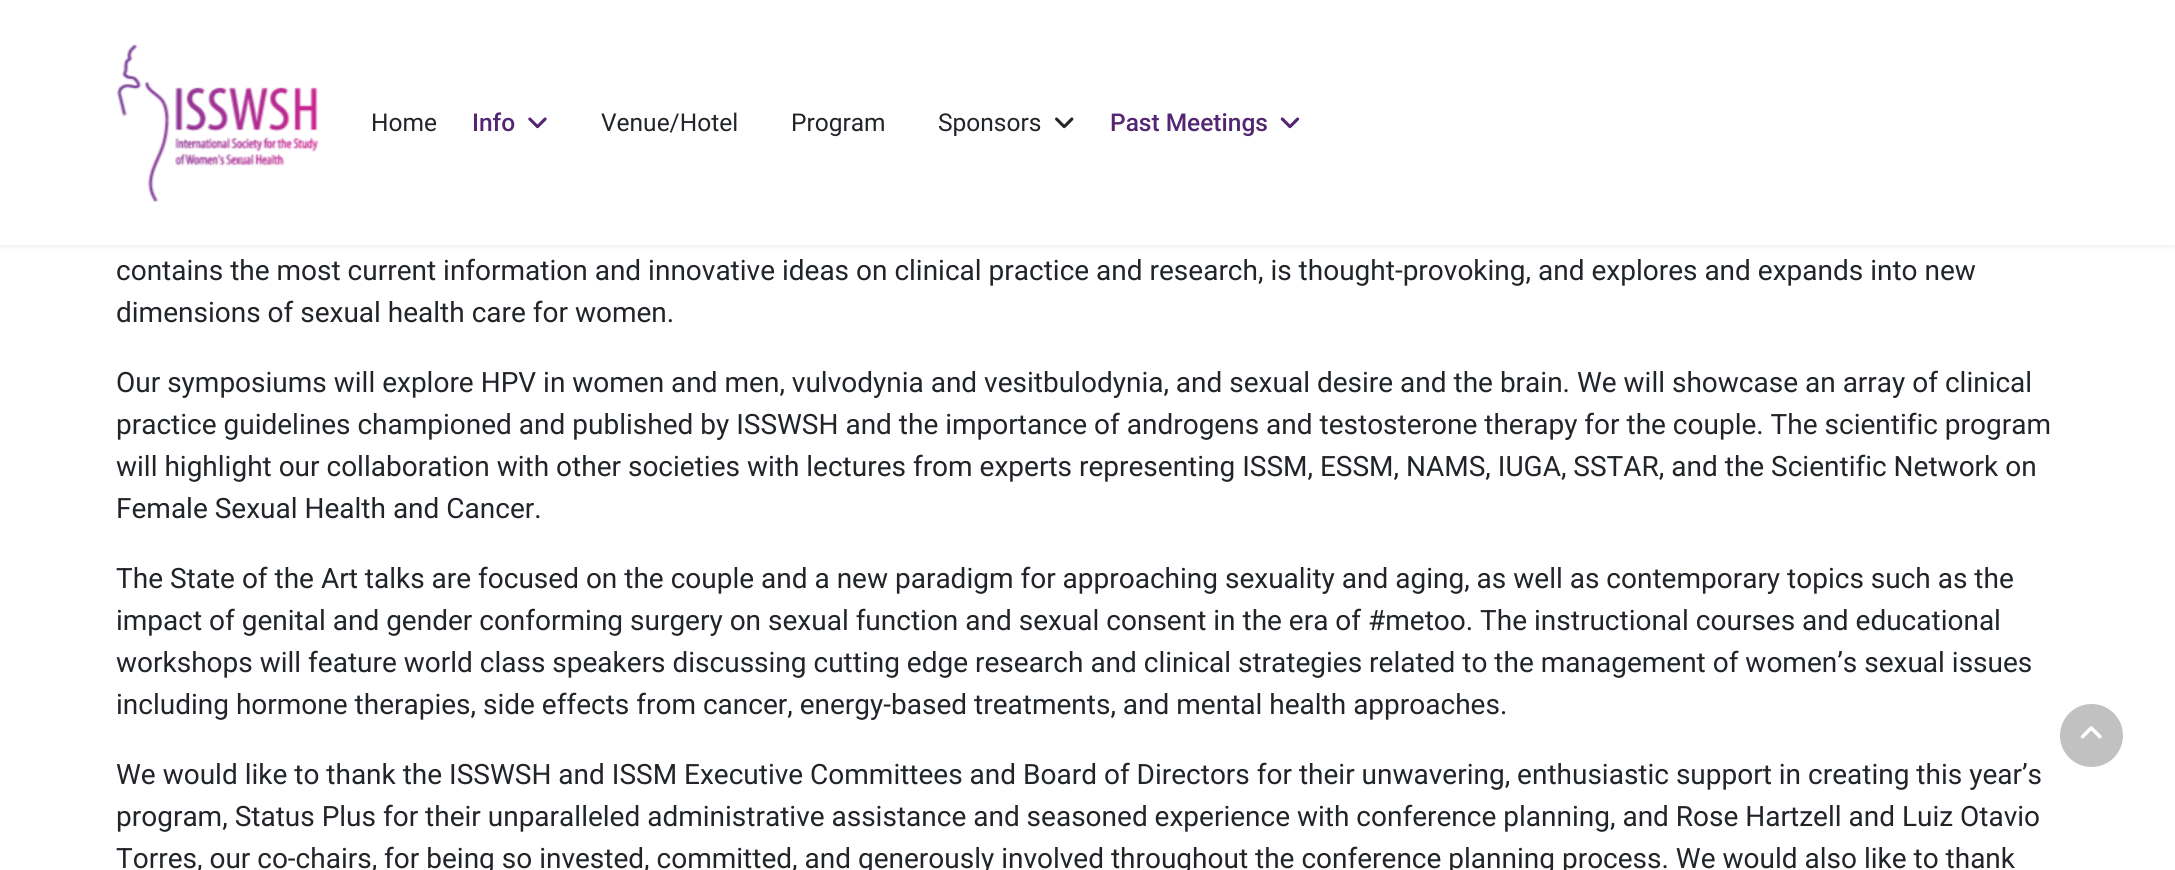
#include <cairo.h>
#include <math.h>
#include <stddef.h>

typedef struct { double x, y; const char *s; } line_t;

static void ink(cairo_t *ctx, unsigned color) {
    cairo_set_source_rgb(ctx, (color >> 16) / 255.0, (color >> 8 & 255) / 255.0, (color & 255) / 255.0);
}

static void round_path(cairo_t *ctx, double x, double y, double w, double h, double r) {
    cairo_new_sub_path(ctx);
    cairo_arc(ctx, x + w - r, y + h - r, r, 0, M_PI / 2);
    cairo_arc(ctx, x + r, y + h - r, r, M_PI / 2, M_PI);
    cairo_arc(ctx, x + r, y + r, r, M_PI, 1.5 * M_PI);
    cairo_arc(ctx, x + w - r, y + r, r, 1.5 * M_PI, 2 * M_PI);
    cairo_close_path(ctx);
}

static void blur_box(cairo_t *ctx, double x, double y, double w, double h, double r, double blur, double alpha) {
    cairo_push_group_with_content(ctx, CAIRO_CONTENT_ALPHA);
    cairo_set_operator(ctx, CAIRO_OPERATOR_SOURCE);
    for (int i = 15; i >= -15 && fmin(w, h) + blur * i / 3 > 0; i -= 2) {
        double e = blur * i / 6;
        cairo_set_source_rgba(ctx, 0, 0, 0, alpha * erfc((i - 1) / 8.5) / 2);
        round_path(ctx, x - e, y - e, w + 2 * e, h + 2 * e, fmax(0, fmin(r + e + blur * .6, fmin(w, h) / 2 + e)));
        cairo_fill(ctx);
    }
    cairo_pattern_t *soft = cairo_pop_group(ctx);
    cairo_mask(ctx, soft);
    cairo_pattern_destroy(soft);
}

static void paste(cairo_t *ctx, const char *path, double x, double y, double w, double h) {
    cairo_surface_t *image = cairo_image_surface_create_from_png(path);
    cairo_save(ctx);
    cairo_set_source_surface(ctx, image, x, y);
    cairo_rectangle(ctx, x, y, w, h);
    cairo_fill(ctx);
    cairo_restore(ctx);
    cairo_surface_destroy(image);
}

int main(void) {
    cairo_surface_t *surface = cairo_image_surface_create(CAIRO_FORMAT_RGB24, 2175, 870);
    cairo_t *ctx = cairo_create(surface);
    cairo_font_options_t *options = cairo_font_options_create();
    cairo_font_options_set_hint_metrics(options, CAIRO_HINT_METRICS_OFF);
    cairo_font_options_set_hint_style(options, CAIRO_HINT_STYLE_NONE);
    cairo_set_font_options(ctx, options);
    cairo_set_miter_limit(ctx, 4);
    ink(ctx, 0xFFFFFF);
    cairo_paint(ctx);
    ink(ctx, 0x000000);
    blur_box(ctx, 0, 0, 2175, 245, 0, 3.5, 0.1);
    ink(ctx, 0xFFFFFF);
    cairo_rectangle(ctx, 0, 0, 2175, 245);
    cairo_fill(ctx);
    paste(ctx, "media/1.png", 116, 44, 203, 158);
    cairo_select_font_face(ctx, "Roboto", CAIRO_FONT_SLANT_NORMAL, CAIRO_FONT_WEIGHT_NORMAL);
    cairo_set_font_size(ctx, 24.5);
    ink(ctx, 0x212529);
    cairo_move_to(ctx, 371, 131);
    cairo_show_text(ctx, "Home");
    cairo_select_font_face(ctx, "Roboto Medium", CAIRO_FONT_SLANT_NORMAL, CAIRO_FONT_WEIGHT_NORMAL);
    ink(ctx, 0x532572);
    cairo_move_to(ctx, 472, 131);
    cairo_show_text(ctx, "Info");
    paste(ctx, "media/2.png", 528, 117, 19, 12);
    cairo_select_font_face(ctx, "Roboto", CAIRO_FONT_SLANT_NORMAL, CAIRO_FONT_WEIGHT_NORMAL);
    ink(ctx, 0x212529);
    {
        static const line_t items[] = {
            {601, 131, "Venue/Hotel"},
            {791, 131, "Program"},
            {938, 131, "Sponsors"},
        };
        for (size_t i = 0; i < sizeof items / sizeof *items; i++) {
            cairo_move_to(ctx, items[i].x, items[i].y);
            cairo_show_text(ctx, items[i].s);
        }
    }
    paste(ctx, "media/3.png", 1055, 117, 19, 12);
    cairo_select_font_face(ctx, "Roboto Medium", CAIRO_FONT_SLANT_NORMAL, CAIRO_FONT_WEIGHT_NORMAL);
    ink(ctx, 0x532572);
    cairo_move_to(ctx, 1110, 131);
    cairo_show_text(ctx, "Past Meetings");
    paste(ctx, "media/4.png", 1280, 117, 20, 12);
    cairo_select_font_face(ctx, "Roboto", CAIRO_FONT_SLANT_NORMAL, CAIRO_FONT_WEIGHT_NORMAL);
    cairo_set_font_size(ctx, 28);
    ink(ctx, 0x212529);
    {
        static const line_t items[] = {
            {116, 280, "contains the most current information and innovative ideas on clinical practice and research, is thought-provoking, and explores and expands into new"},
            {116, 322, "dimensions of sexual health care for women."},
            {116, 392, "Our symposiums will explore HPV in women and men, vulvodynia and vesitbulodynia, and sexual desire and the brain. We will showcase an array of clinical"},
            {116, 434, "practice guidelines championed and published by ISSWSH and the importance of androgens and testosterone therapy for the couple. The scientific program"},
            {116, 476, "will highlight our collaboration with other societies with lectures from experts representing ISSM, ESSM, NAMS, IUGA, SSTAR, and the Scientific Network on"},
            {116, 518, "Female Sexual Health and Cancer."},
            {116, 588, "The State of the Art talks are focused on the couple and a new paradigm for approaching sexuality and aging, as well as contemporary topics such as the"},
            {116, 630, "impact of genital and gender conforming surgery on sexual function and sexual consent in the era of #metoo. The instructional courses and educational"},
            {116, 672, "workshops will feature world class speakers discussing cutting edge research and clinical strategies related to the management of women’s sexual issues"},
            {116, 714, "including hormone therapies, side effects from cancer, energy-based treatments, and mental health approaches."},
            {116, 784, "We would like to thank the ISSWSH and ISSM Executive Committees and Board of Directors for their unwavering, enthusiastic support in creating this year’s"},
            {116, 826, "program, Status Plus for their unparalleled administrative assistance and seasoned experience with conference planning, and Rose Hartzell and Luiz Otavio"},
            {116, 868, "Torres, our co-chairs, for being so invested, committed, and generously involved throughout the conference planning process. We would also like to thank"},
        };
        for (size_t i = 0; i < sizeof items / sizeof *items; i++) {
            cairo_move_to(ctx, items[i].x, items[i].y);
            cairo_show_text(ctx, items[i].s);
        }
    }
    ink(ctx, 0xC1C1C1);
    cairo_new_path(ctx);
    cairo_arc(ctx, 2091.5, 735.5, 31.5, 0, 2 * M_PI);
    cairo_fill(ctx);
    paste(ctx, "media/5.png", 2080, 726, 22, 13);
    cairo_surface_write_to_png(surface, "image.png");
    cairo_font_options_destroy(options);
    cairo_destroy(ctx);
    cairo_surface_destroy(surface);
    return 0;
}
